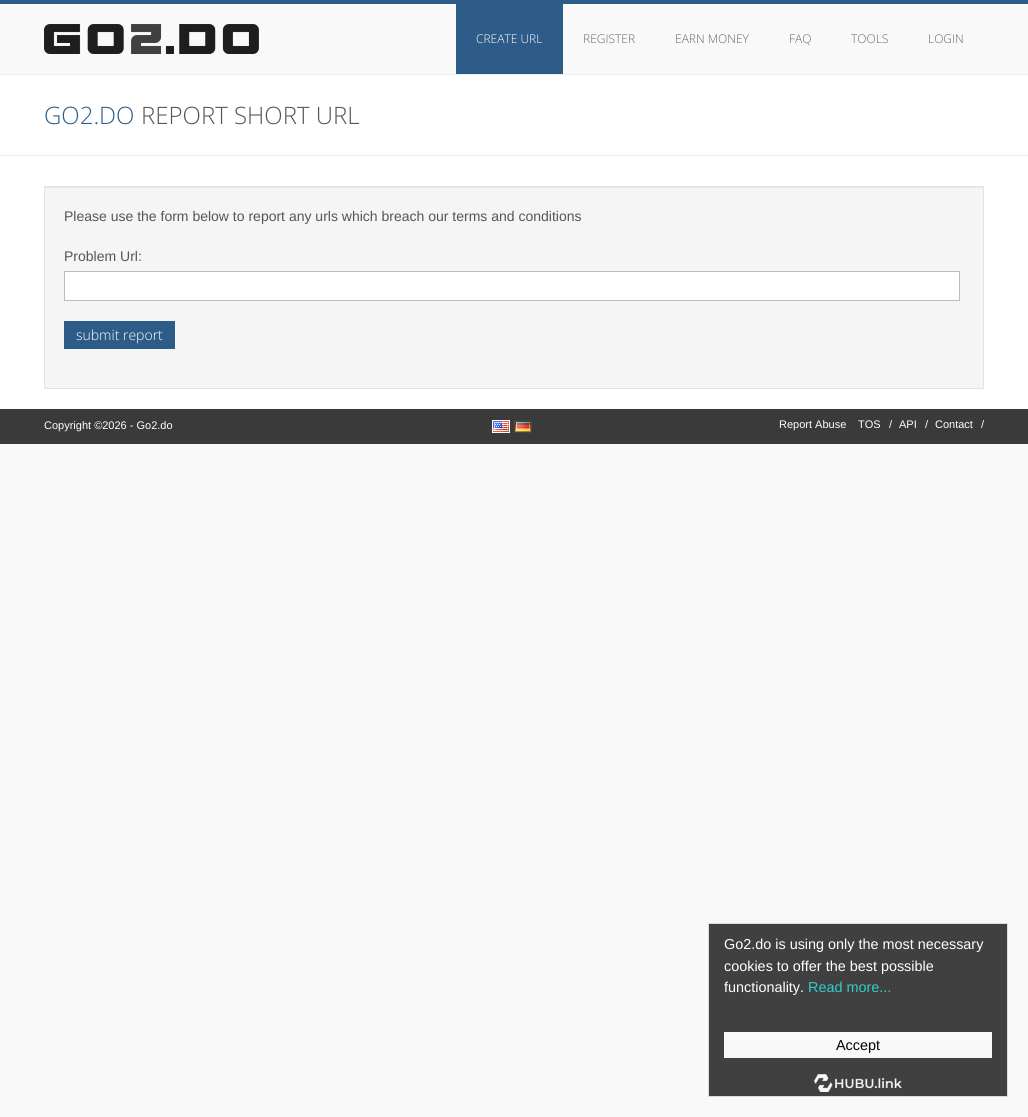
#include <cairo.h>
#include <math.h>
#include <stddef.h>

typedef struct { double x, y; const char *s; } line_t;

static void ink(cairo_t *ctx, unsigned color) {
    cairo_set_source_rgb(ctx, (color >> 16) / 255.0, (color >> 8 & 255) / 255.0, (color & 255) / 255.0);
}

static void paste(cairo_t *ctx, const char *path, double x, double y, double w, double h) {
    cairo_surface_t *image = cairo_image_surface_create_from_png(path);
    cairo_save(ctx);
    cairo_set_source_surface(ctx, image, x, y);
    cairo_rectangle(ctx, x, y, w, h);
    cairo_fill(ctx);
    cairo_restore(ctx);
    cairo_surface_destroy(image);
}

int main(void) {
    cairo_surface_t *surface = cairo_image_surface_create(CAIRO_FORMAT_RGB24, 1028, 1117);
    cairo_t *ctx = cairo_create(surface);
    cairo_font_options_t *options = cairo_font_options_create();
    cairo_font_options_set_hint_metrics(options, CAIRO_HINT_METRICS_OFF);
    cairo_font_options_set_hint_style(options, CAIRO_HINT_STYLE_NONE);
    cairo_set_font_options(ctx, options);
    cairo_set_miter_limit(ctx, 4);
    ink(ctx, 0xF9F9F9);
    cairo_paint(ctx);
    ink(ctx, 0xFFFFFF);
    cairo_rectangle(ctx, 0, 75, 1028, 334);
    cairo_fill(ctx);
    ink(ctx, 0x2D5C88);
    cairo_rectangle(ctx, 0, 0, 1028, 4);
    cairo_fill(ctx);
    paste(ctx, "media/1.png", 44, 24, 215, 30);
    cairo_rectangle(ctx, 456, 4, 107, 70);
    cairo_fill(ctx);
    cairo_select_font_face(ctx, "Open Sans Light", CAIRO_FONT_SLANT_NORMAL, CAIRO_FONT_WEIGHT_NORMAL);
    cairo_set_font_size(ctx, 12);
    ink(ctx, 0xFFFFFF);
    cairo_move_to(ctx, 476, 43);
    cairo_show_text(ctx, "CREATE URL");
    ink(ctx, 0x666666);
    {
        static const line_t items[] = {
            {583, 43, "REGISTER"},
            {675, 43, "EARN MONEY"},
            {789, 43, "FAQ"},
            {851, 43, "TOOLS"},
            {928, 43, "LOGIN"},
        };
        for (size_t i = 0; i < sizeof items / sizeof *items; i++) {
            cairo_move_to(ctx, items[i].x, items[i].y);
            cairo_show_text(ctx, items[i].s);
        }
    }
    ink(ctx, 0xEDEDED);
    cairo_rectangle(ctx, 0, 74, 1028, 1);
    cairo_fill(ctx);
    cairo_rectangle(ctx, 0, 155, 1028, 1);
    cairo_fill(ctx);
    cairo_set_font_size(ctx, 24);
    ink(ctx, 0x2D5C88);
    cairo_move_to(ctx, 44, 124);
    cairo_show_text(ctx, "GO2.DO");
    ink(ctx, 0x555555);
    cairo_move_to(ctx, 141, 124);
    cairo_show_text(ctx, "REPORT SHORT URL");
    ink(ctx, 0xF5F5F5);
    cairo_rectangle(ctx, 45, 188, 938, 200);
    cairo_fill(ctx);
    ink(ctx, 0xE9E9E9);
    cairo_rectangle(ctx, 45, 187, 938, 1);
    cairo_fill(ctx);
    cairo_rectangle(ctx, 44.5, 186.5, 939, 202);
    ink(ctx, 0xE3E3E3);
    cairo_set_line_width(ctx, 1);
    cairo_stroke(ctx);
    cairo_select_font_face(ctx, "Liberation Sans", CAIRO_FONT_SLANT_NORMAL, CAIRO_FONT_WEIGHT_NORMAL);
    cairo_set_font_size(ctx, 14);
    ink(ctx, 0x555555);
    cairo_move_to(ctx, 64, 221);
    cairo_show_text(ctx, "Please use the form below to report any urls which breach our terms and conditions");
    cairo_move_to(ctx, 64, 261);
    cairo_show_text(ctx, "Problem Url:");
    ink(ctx, 0xFFFFFF);
    cairo_rectangle(ctx, 64.5, 271.5, 895, 29);
    cairo_fill_preserve(ctx);
    ink(ctx, 0xBBBBBB);
    cairo_stroke(ctx);
    ink(ctx, 0x2D5C88);
    cairo_rectangle(ctx, 64, 321, 111, 28);
    cairo_fill(ctx);
    cairo_select_font_face(ctx, "Open Sans Light", CAIRO_FONT_SLANT_NORMAL, CAIRO_FONT_WEIGHT_NORMAL);
    ink(ctx, 0xFFFFFF);
    cairo_move_to(ctx, 76, 340);
    cairo_show_text(ctx, "submit report");
    ink(ctx, 0x3A3A3A);
    cairo_rectangle(ctx, 0, 409, 1028, 35);
    cairo_fill(ctx);
    cairo_select_font_face(ctx, "Liberation Sans", CAIRO_FONT_SLANT_NORMAL, CAIRO_FONT_WEIGHT_NORMAL);
    cairo_set_font_size(ctx, 11);
    ink(ctx, 0xFFFFFF);
    cairo_move_to(ctx, 44, 429);
    cairo_show_text(ctx, "Copyright ©2026 - Go2.do");
    cairo_rectangle(ctx, 492.5, 420.5, 17, 12);
    cairo_stroke(ctx);
    cairo_rectangle(ctx, 514.5, 420.5, 17, 12);
    ink(ctx, 0x444444);
    cairo_stroke(ctx);
    paste(ctx, "media/2.png", 493, 421, 16, 11);
    paste(ctx, "media/3.png", 515, 421, 16, 11);
    ink(ctx, 0xFFFFFF);
    {
        static const line_t items[] = {
            {779, 428, "Report Abuse"},
            {858, 428, "TOS"},
            {889, 428, "/"},
            {899, 428, "API"},
            {925, 428, "/"},
            {935, 428, "Contact"},
            {981, 428, "/"},
        };
        for (size_t i = 0; i < sizeof items / sizeof *items; i++) {
            cairo_move_to(ctx, items[i].x, items[i].y);
            cairo_show_text(ctx, items[i].s);
        }
    }
    ink(ctx, 0x404040);
    cairo_rectangle(ctx, 709, 924, 298, 172);
    cairo_fill(ctx);
    paste(ctx, "media/4.png", 814, 1074, 88, 18);
    cairo_rectangle(ctx, 708.5, 923.5, 299, 173);
    ink(ctx, 0xDDDDDD);
    cairo_stroke(ctx);
    cairo_set_font_size(ctx, 14.4);
    ink(ctx, 0xFFFFFF);
    {
        static const line_t items[] = {
            {724, 949, "Go2.do is using only the most necessary"},
            {724, 971, "cookies to offer the best possible"},
            {724, 992, "functionality."},
        };
        for (size_t i = 0; i < sizeof items / sizeof *items; i++) {
            cairo_move_to(ctx, items[i].x, items[i].y);
            cairo_show_text(ctx, items[i].s);
        }
    }
    ink(ctx, 0x33CCCC);
    cairo_move_to(ctx, 808, 992);
    cairo_show_text(ctx, "Read more...");
    ink(ctx, 0xF9F9F9);
    cairo_rectangle(ctx, 724, 1032, 268, 26);
    cairo_fill(ctx);
    ink(ctx, 0x000000);
    cairo_move_to(ctx, 836, 1050);
    cairo_show_text(ctx, "Accept");
    cairo_surface_write_to_png(surface, "image.png");
    cairo_font_options_destroy(options);
    cairo_destroy(ctx);
    cairo_surface_destroy(surface);
    return 0;
}
